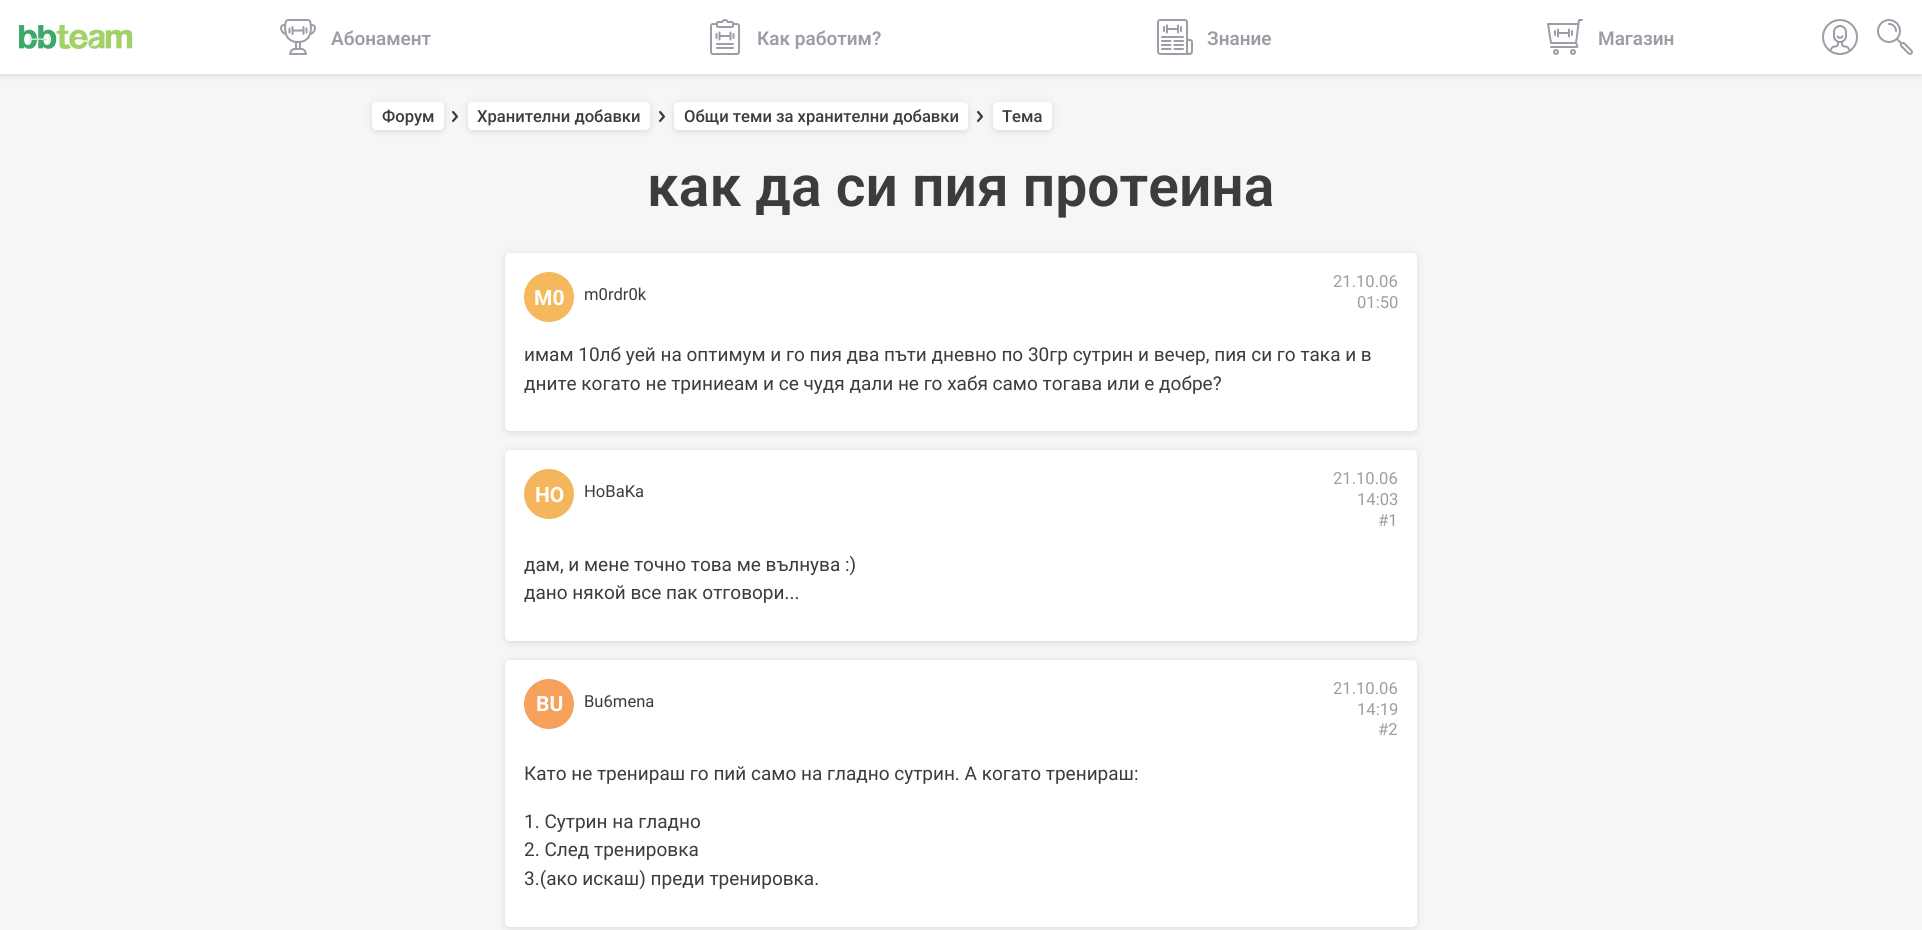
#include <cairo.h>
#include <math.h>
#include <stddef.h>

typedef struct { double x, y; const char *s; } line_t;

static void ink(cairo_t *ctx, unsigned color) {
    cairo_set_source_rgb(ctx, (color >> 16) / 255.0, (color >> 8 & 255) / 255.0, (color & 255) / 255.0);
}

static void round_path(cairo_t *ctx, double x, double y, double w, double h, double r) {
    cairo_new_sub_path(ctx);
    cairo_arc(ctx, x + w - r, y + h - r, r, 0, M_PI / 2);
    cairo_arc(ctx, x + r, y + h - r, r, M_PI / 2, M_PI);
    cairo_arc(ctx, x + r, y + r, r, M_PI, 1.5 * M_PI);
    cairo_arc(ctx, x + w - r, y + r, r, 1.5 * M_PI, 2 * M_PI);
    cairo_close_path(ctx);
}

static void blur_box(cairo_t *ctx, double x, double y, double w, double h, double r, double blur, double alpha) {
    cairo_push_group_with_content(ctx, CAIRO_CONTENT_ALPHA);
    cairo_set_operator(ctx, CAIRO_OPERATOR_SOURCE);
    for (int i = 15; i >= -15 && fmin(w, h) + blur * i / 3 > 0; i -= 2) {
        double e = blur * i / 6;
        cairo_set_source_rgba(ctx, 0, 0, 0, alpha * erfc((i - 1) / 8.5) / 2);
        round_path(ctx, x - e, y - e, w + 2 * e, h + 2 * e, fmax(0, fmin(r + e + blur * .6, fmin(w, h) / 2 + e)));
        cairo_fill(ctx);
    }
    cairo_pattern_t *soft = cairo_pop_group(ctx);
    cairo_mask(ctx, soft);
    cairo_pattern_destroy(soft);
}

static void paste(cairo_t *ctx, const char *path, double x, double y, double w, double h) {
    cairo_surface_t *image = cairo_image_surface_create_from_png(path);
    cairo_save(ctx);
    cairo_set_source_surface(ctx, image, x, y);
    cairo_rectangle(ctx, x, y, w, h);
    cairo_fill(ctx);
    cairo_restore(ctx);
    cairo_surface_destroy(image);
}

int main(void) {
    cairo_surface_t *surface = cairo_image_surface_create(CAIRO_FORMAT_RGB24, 1922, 930);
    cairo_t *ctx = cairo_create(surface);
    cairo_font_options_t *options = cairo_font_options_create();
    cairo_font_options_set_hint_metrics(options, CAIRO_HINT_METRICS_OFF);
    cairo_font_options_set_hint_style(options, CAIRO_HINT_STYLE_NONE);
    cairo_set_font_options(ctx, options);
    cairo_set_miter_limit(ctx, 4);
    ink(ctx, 0xF5F6F8);
    cairo_paint(ctx);
    ink(ctx, 0x3C3C3F);
    blur_box(ctx, 0, 3, 1922, 74, 0, 3, 0.07);
    blur_box(ctx, 0, 0, 1922, 74, 0, 4, 0.09);
    ink(ctx, 0xFFFFFF);
    cairo_rectangle(ctx, 0, 0, 1922, 74);
    cairo_fill(ctx);
    paste(ctx, "media/1.png", 19, 25, 114, 24);
    paste(ctx, "media/2.png", 280, 19, 36, 36);
    cairo_select_font_face(ctx, "Roboto SemiBold", CAIRO_FONT_SLANT_NORMAL, CAIRO_FONT_WEIGHT_NORMAL);
    cairo_set_font_size(ctx, 19);
    ink(ctx, 0x9C9DA6);
    cairo_move_to(ctx, 331, 45);
    cairo_show_text(ctx, "Абонамент");
    paste(ctx, "media/3.png", 710, 19, 30, 36);
    cairo_move_to(ctx, 757, 45);
    cairo_show_text(ctx, "Как работим?");
    paste(ctx, "media/4.png", 1157, 19, 36, 36);
    cairo_move_to(ctx, 1207, 45);
    cairo_show_text(ctx, "Знание");
    paste(ctx, "media/5.png", 1547, 19, 36, 36);
    cairo_move_to(ctx, 1598, 45);
    cairo_show_text(ctx, "Магазин");
    paste(ctx, "media/6.png", 1822, 19, 36, 36);
    paste(ctx, "media/7.png", 1877, 19, 36, 36);
    ink(ctx, 0x3C3C3F);
    blur_box(ctx, 372, 105, 72, 28, 5, 3, 0.07);
    blur_box(ctx, 372, 102, 72, 28, 5, 4, 0.09);
    ink(ctx, 0xFFFFFF);
    round_path(ctx, 372, 102, 72, 28, 5);
    cairo_fill(ctx);
    cairo_select_font_face(ctx, "Roboto Medium", CAIRO_FONT_SLANT_NORMAL, CAIRO_FONT_WEIGHT_NORMAL);
    cairo_set_font_size(ctx, 16.6);
    ink(ctx, 0x3C3C3F);
    cairo_move_to(ctx, 382, 122);
    cairo_show_text(ctx, "Форум");
    paste(ctx, "media/8.png", 452, 111, 6, 11);
    ink(ctx, 0x3C3C3F);
    blur_box(ctx, 468, 105, 182, 28, 5, 3, 0.07);
    blur_box(ctx, 468, 102, 182, 28, 5, 4, 0.09);
    ink(ctx, 0xFFFFFF);
    round_path(ctx, 468, 102, 182, 28, 5);
    cairo_fill(ctx);
    ink(ctx, 0x3C3C3F);
    cairo_move_to(ctx, 477, 122);
    cairo_show_text(ctx, "Хранителни добавки");
    paste(ctx, "media/9.png", 659, 111, 6, 11);
    ink(ctx, 0x3C3C3F);
    blur_box(ctx, 674, 105, 294, 28, 5, 3, 0.07);
    blur_box(ctx, 674, 102, 294, 28, 5, 4, 0.09);
    ink(ctx, 0xFFFFFF);
    round_path(ctx, 674, 102, 294, 28, 5);
    cairo_fill(ctx);
    ink(ctx, 0x3C3C3F);
    cairo_move_to(ctx, 684, 122);
    cairo_show_text(ctx, "Общи теми за хранителни добавки");
    paste(ctx, "media/9.png", 977, 111, 6, 11);
    ink(ctx, 0x3C3C3F);
    blur_box(ctx, 993, 105, 59, 28, 5, 3, 0.07);
    blur_box(ctx, 993, 102, 59, 28, 5, 4, 0.09);
    ink(ctx, 0xFFFFFF);
    round_path(ctx, 993, 102, 59, 28, 5);
    cairo_fill(ctx);
    ink(ctx, 0x3C3C3F);
    cairo_move_to(ctx, 1002, 122);
    cairo_show_text(ctx, "Тема");
    cairo_select_font_face(ctx, "Roboto SemiBold", CAIRO_FONT_SLANT_NORMAL, CAIRO_FONT_WEIGHT_NORMAL);
    cairo_set_font_size(ctx, 57);
    cairo_move_to(ctx, 647, 206);
    cairo_show_text(ctx, "как да си пия протеина");
    ink(ctx, 0x3C3C3F);
    blur_box(ctx, 505, 256, 912, 178, 5, 3, 0.07);
    blur_box(ctx, 505, 253, 912, 178, 5, 4, 0.09);
    ink(ctx, 0xFFFFFF);
    round_path(ctx, 505, 253, 912, 178, 5);
    cairo_fill(ctx);
    ink(ctx, 0xF5B85C);
    cairo_arc(ctx, 549, 297, 25, 0, 2 * M_PI);
    cairo_fill(ctx);
    cairo_select_font_face(ctx, "Roboto", CAIRO_FONT_SLANT_NORMAL, CAIRO_FONT_WEIGHT_BOLD);
    cairo_set_font_size(ctx, 21);
    ink(ctx, 0xFFFFFF);
    cairo_move_to(ctx, 534, 305);
    cairo_show_text(ctx, "M0");
    cairo_select_font_face(ctx, "Roboto", CAIRO_FONT_SLANT_NORMAL, CAIRO_FONT_WEIGHT_NORMAL);
    cairo_set_font_size(ctx, 16.6);
    ink(ctx, 0x3C3C3F);
    cairo_move_to(ctx, 584, 300);
    cairo_show_text(ctx, "m0rdr0k");
    ink(ctx, 0x9C9DA6);
    cairo_move_to(ctx, 1333, 287);
    cairo_show_text(ctx, "21.10.06");
    cairo_move_to(ctx, 1357, 308);
    cairo_show_text(ctx, "01:50");
    cairo_set_font_size(ctx, 19);
    ink(ctx, 0x3C3C3F);
    cairo_move_to(ctx, 524, 361);
    cairo_show_text(ctx, "имам 10лб уей на оптимум и го пия два пъти дневно по 30гр сутрин и вечер, пия си го така и в");
    cairo_move_to(ctx, 524, 390);
    cairo_show_text(ctx, "дните когато не триниеам и се чудя дали не го хабя само тогава или е добре?");
    ink(ctx, 0x3C3C3F);
    blur_box(ctx, 505, 453, 912, 191, 5, 3, 0.07);
    blur_box(ctx, 505, 450, 912, 191, 5, 4, 0.09);
    ink(ctx, 0xFFFFFF);
    round_path(ctx, 505, 450, 912, 191, 5);
    cairo_fill(ctx);
    ink(ctx, 0xF5B55C);
    cairo_arc(ctx, 549, 494, 25, 0, 2 * M_PI);
    cairo_fill(ctx);
    cairo_select_font_face(ctx, "Roboto", CAIRO_FONT_SLANT_NORMAL, CAIRO_FONT_WEIGHT_BOLD);
    cairo_set_font_size(ctx, 21);
    ink(ctx, 0xFFFFFF);
    cairo_move_to(ctx, 535, 502);
    cairo_show_text(ctx, "HO");
    cairo_select_font_face(ctx, "Roboto", CAIRO_FONT_SLANT_NORMAL, CAIRO_FONT_WEIGHT_NORMAL);
    cairo_set_font_size(ctx, 16.6);
    ink(ctx, 0x3C3C3F);
    cairo_move_to(ctx, 584, 497);
    cairo_show_text(ctx, "HoBaKa");
    ink(ctx, 0x9C9DA6);
    {
        static const line_t items[] = {
            {1333, 484, "21.10.06"},
            {1357, 505, "14:03"},
            {1378, 526, "#1"},
        };
        for (size_t i = 0; i < sizeof items / sizeof *items; i++) {
            cairo_move_to(ctx, items[i].x, items[i].y);
            cairo_show_text(ctx, items[i].s);
        }
    }
    cairo_set_font_size(ctx, 19);
    ink(ctx, 0x3C3C3F);
    cairo_move_to(ctx, 524, 571);
    cairo_show_text(ctx, "дам, и мене точно това ме вълнува :)");
    cairo_move_to(ctx, 524, 599);
    cairo_show_text(ctx, "дано някой все пак отговори...");
    ink(ctx, 0x3C3C3F);
    blur_box(ctx, 505, 663, 912, 267, 5, 3, 0.07);
    blur_box(ctx, 505, 660, 912, 267, 5, 4, 0.09);
    ink(ctx, 0xFFFFFF);
    round_path(ctx, 505, 660, 912, 267, 5);
    cairo_fill(ctx);
    ink(ctx, 0xF5A15C);
    cairo_arc(ctx, 549, 704, 25, 0, 2 * M_PI);
    cairo_fill(ctx);
    cairo_select_font_face(ctx, "Roboto", CAIRO_FONT_SLANT_NORMAL, CAIRO_FONT_WEIGHT_BOLD);
    cairo_set_font_size(ctx, 21);
    ink(ctx, 0xFFFFFF);
    cairo_move_to(ctx, 536, 711);
    cairo_show_text(ctx, "BU");
    cairo_select_font_face(ctx, "Roboto", CAIRO_FONT_SLANT_NORMAL, CAIRO_FONT_WEIGHT_NORMAL);
    cairo_set_font_size(ctx, 16.6);
    ink(ctx, 0x3C3C3F);
    cairo_move_to(ctx, 584, 707);
    cairo_show_text(ctx, "Bu6mena");
    ink(ctx, 0x9C9DA6);
    {
        static const line_t items[] = {
            {1333, 694, "21.10.06"},
            {1357, 715, "14:19"},
            {1378, 735, "#2"},
        };
        for (size_t i = 0; i < sizeof items / sizeof *items; i++) {
            cairo_move_to(ctx, items[i].x, items[i].y);
            cairo_show_text(ctx, items[i].s);
        }
    }
    cairo_set_font_size(ctx, 19);
    ink(ctx, 0x3C3C3F);
    {
        static const line_t items[] = {
            {524, 780, "Като не тренираш го пий само на гладно сутрин. А когато тренираш:"},
            {524, 828, "1. Сутрин на гладно"},
            {524, 856, "2. След тренировка"},
            {524, 885, "3.(ако искаш) преди тренировка."},
        };
        for (size_t i = 0; i < sizeof items / sizeof *items; i++) {
            cairo_move_to(ctx, items[i].x, items[i].y);
            cairo_show_text(ctx, items[i].s);
        }
    }
    cairo_surface_write_to_png(surface, "image.png");
    cairo_font_options_destroy(options);
    cairo_destroy(ctx);
    cairo_surface_destroy(surface);
    return 0;
}
